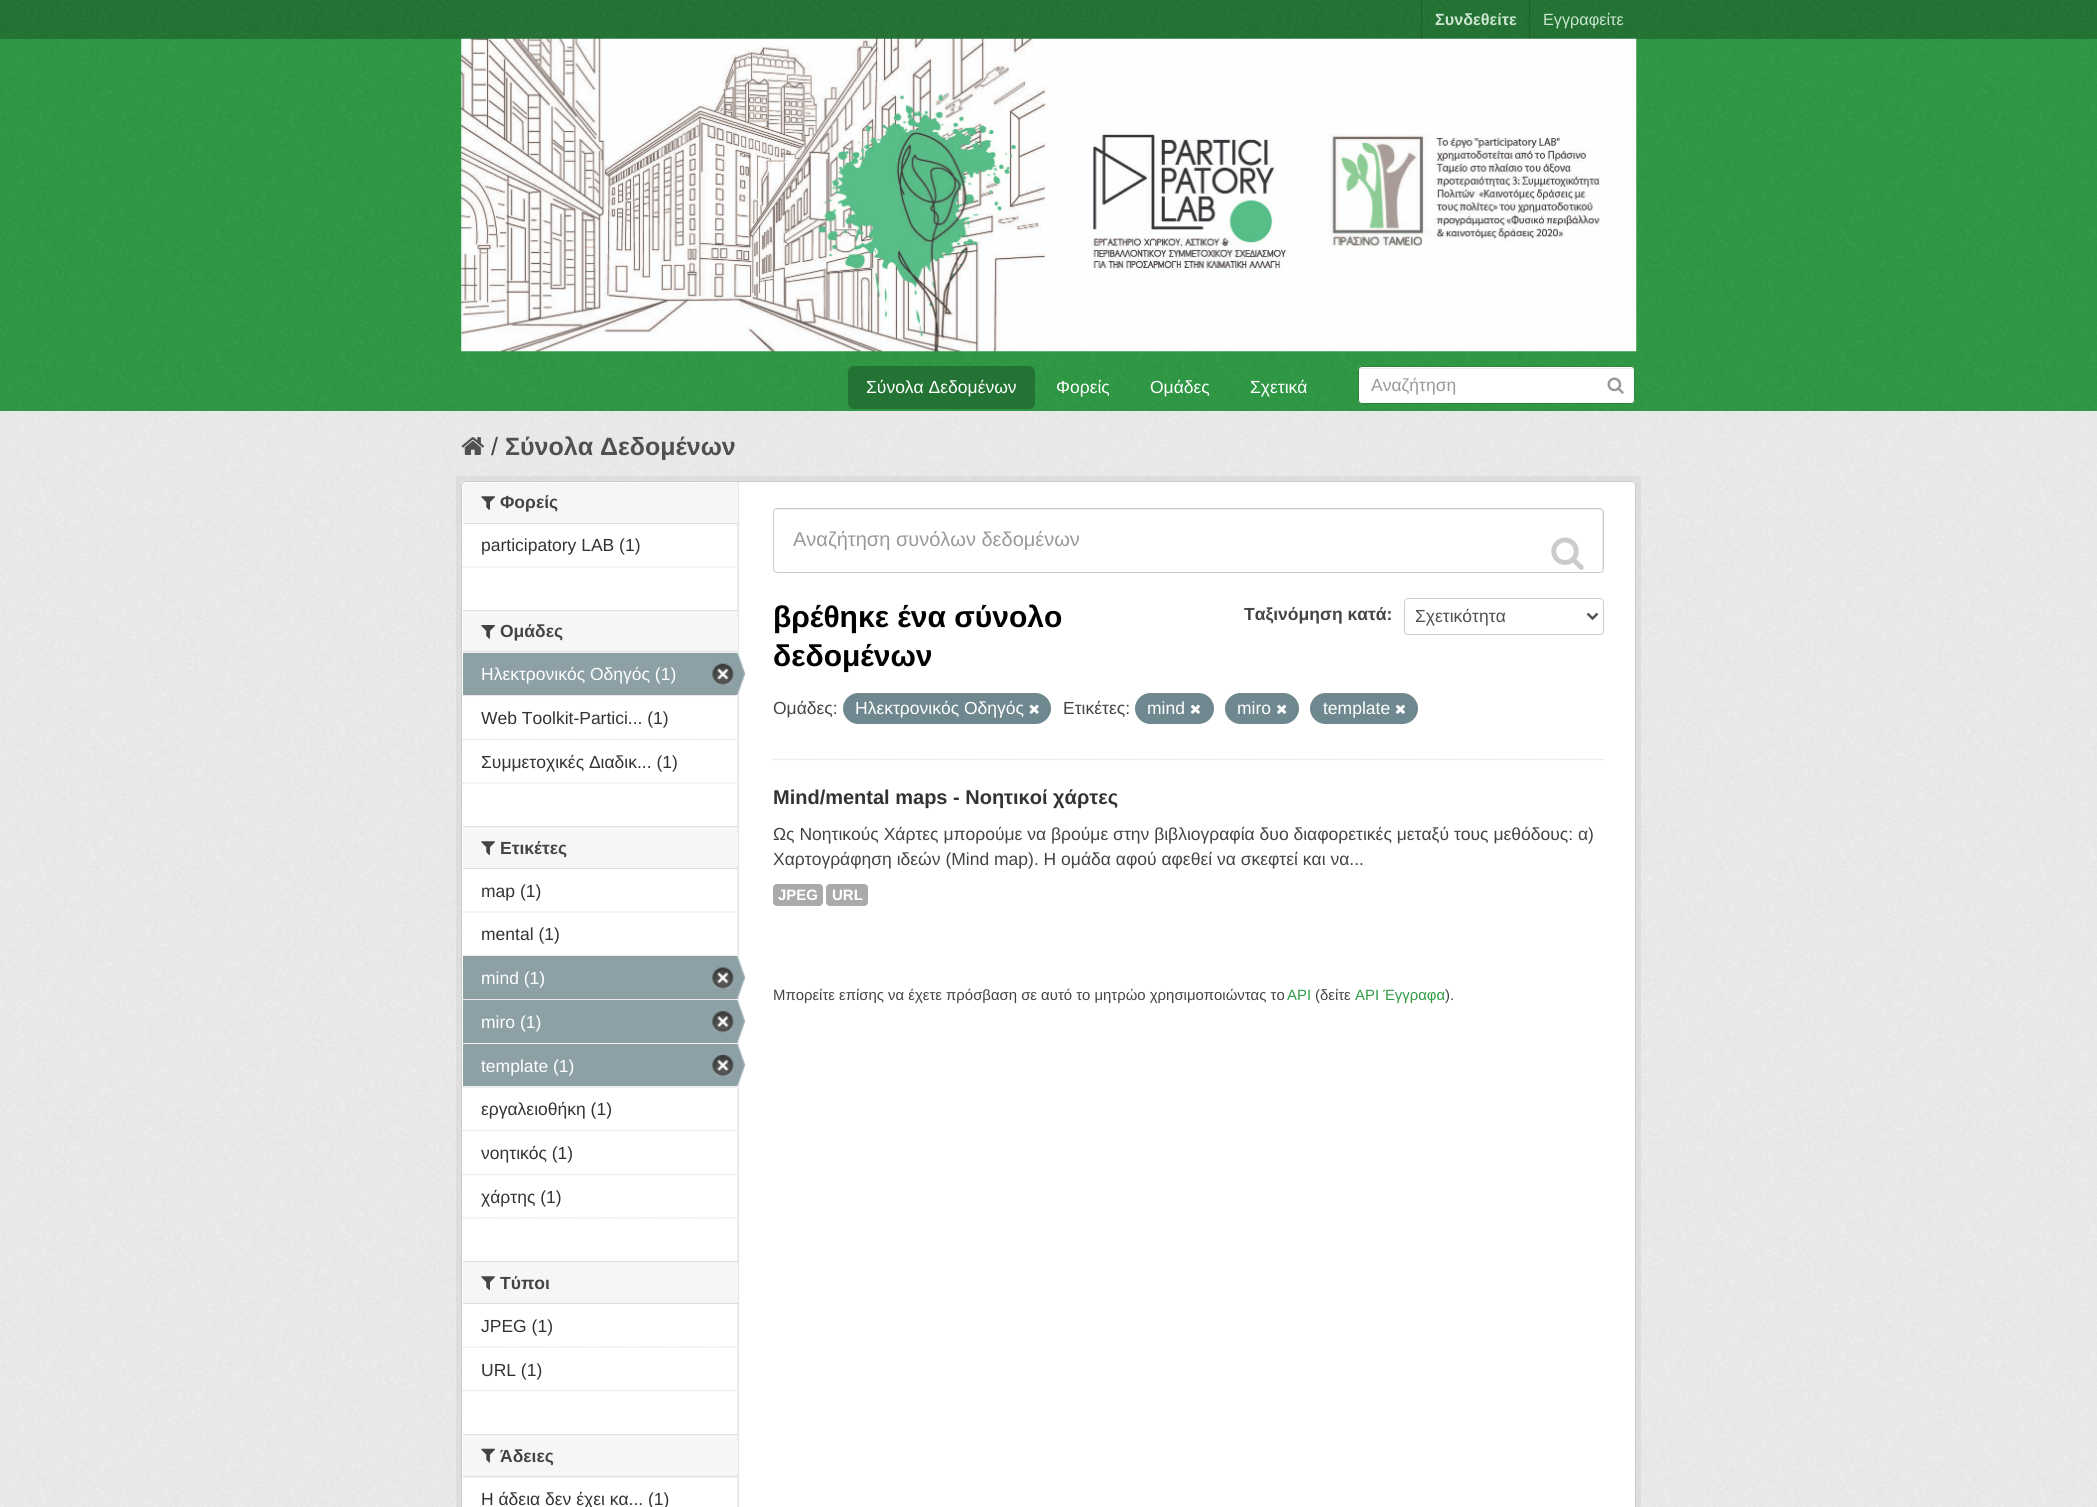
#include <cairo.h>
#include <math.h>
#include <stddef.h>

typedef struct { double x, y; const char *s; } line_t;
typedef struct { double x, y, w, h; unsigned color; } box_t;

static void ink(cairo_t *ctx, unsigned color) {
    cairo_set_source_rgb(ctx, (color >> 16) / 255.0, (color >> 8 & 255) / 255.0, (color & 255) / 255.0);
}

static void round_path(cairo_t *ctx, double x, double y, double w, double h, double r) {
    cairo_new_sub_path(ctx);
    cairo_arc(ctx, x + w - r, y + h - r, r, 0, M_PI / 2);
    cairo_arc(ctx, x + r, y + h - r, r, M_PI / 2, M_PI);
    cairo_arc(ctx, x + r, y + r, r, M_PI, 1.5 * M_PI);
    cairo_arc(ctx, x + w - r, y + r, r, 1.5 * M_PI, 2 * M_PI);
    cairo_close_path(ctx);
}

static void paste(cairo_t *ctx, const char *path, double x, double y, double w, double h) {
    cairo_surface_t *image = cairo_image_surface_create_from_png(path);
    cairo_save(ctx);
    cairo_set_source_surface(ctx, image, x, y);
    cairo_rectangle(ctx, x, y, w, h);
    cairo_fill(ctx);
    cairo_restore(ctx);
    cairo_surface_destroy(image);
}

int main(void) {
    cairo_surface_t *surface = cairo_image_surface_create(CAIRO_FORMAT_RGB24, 2097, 1507);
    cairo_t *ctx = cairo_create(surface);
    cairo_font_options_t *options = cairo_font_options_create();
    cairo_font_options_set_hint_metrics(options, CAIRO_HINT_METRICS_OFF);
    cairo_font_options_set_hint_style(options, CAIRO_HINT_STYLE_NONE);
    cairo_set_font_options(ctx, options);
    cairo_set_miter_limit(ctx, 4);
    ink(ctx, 0x237434);
    cairo_paint(ctx);
    paste(ctx, "media/1.png", 0, 0, 2096, 38);
    ink(ctx, 0x1D602B);
    cairo_rectangle(ctx, 1421, 0, 1, 39);
    cairo_fill(ctx);
    cairo_select_font_face(ctx, "Liberation Sans", CAIRO_FONT_SLANT_NORMAL, CAIRO_FONT_WEIGHT_BOLD);
    cairo_set_font_size(ctx, 16.25);
    ink(ctx, 0xCBE6D1);
    cairo_move_to(ctx, 1435, 25);
    cairo_show_text(ctx, "Συνδεθείτε");
    ink(ctx, 0x1D602B);
    cairo_rectangle(ctx, 1529, 0, 1, 39);
    cairo_fill(ctx);
    cairo_select_font_face(ctx, "Liberation Sans", CAIRO_FONT_SLANT_NORMAL, CAIRO_FONT_WEIGHT_NORMAL);
    ink(ctx, 0xCBE6D1);
    cairo_move_to(ctx, 1543, 25);
    cairo_show_text(ctx, "Εγγραφείτε");
    ink(ctx, 0x2F9B45);
    cairo_rectangle(ctx, 0, 39, 2097, 372);
    cairo_fill(ctx);
    paste(ctx, "media/2.png", 0, 39, 2097, 372);
    paste(ctx, "media/3.png", 461, 38, 1176, 314);
    ink(ctx, 0x237434);
    round_path(ctx, 848, 366, 187, 43, 6);
    cairo_fill(ctx);
    cairo_set_font_size(ctx, 17.5);
    ink(ctx, 0xFFFFFF);
    {
        static const line_t items[] = {
            {866, 393, "Σύνολα Δεδομένων"},
            {1056, 393, "Φορείς"},
            {1150, 393, "Ομάδες"},
            {1250, 393, "Σχετικά"},
        };
        for (size_t i = 0; i < sizeof items / sizeof *items; i++) {
            cairo_move_to(ctx, items[i].x, items[i].y);
            cairo_show_text(ctx, items[i].s);
        }
    }
    round_path(ctx, 1358, 366, 277, 38, 4);
    cairo_fill(ctx);
    ink(ctx, 0xECECEC);
    cairo_new_path(ctx);
    cairo_move_to(ctx, 1361, 369);
    cairo_line_to(ctx, 1631, 369);
    cairo_curve_to(ctx, 1633, 369, 1634, 370, 1634, 371);
    cairo_curve_to(ctx, 1634, 369, 1633, 368, 1632, 368);
    cairo_line_to(ctx, 1362, 368);
    cairo_curve_to(ctx, 1360, 368, 1359, 369, 1359, 371);
    cairo_curve_to(ctx, 1359, 370, 1360, 369, 1361, 369);
    cairo_close_path(ctx);
    cairo_fill(ctx);
    round_path(ctx, 1358.5, 366.5, 276, 37, 3.5);
    ink(ctx, 0x29873C);
    cairo_set_line_width(ctx, 1);
    cairo_stroke(ctx);
    ink(ctx, 0x999999);
    cairo_move_to(ctx, 1371, 391);
    cairo_show_text(ctx, "Αναζήτηση");
    paste(ctx, "media/4.png", 1607, 377, 17, 17);
    ink(ctx, 0xEEEEEE);
    cairo_rectangle(ctx, 0, 411, 2097, 1096);
    cairo_fill(ctx);
    paste(ctx, "media/5.png", 0, 411, 2097, 1096);
    paste(ctx, "media/6.png", 461, 437, 24, 18);
    cairo_set_font_size(ctx, 25);
    ink(ctx, 0x444444);
    cairo_move_to(ctx, 491, 455);
    cairo_show_text(ctx, "/");
    cairo_select_font_face(ctx, "Liberation Sans", CAIRO_FONT_SLANT_NORMAL, CAIRO_FONT_WEIGHT_BOLD);
    ink(ctx, 0x505050);
    cairo_move_to(ctx, 505, 455);
    cairo_show_text(ctx, "Σύνολα Δεδομένων");
    cairo_rectangle(ctx, 458.5, 478.5, 1180, 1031);
    cairo_set_source_rgba(ctx, 0, 0, 0, 0.05);
    cairo_set_line_width(ctx, 5);
    cairo_stroke(ctx);
    ink(ctx, 0xFFFFFF);
    round_path(ctx, 461, 481, 1175, 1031, 5);
    cairo_fill(ctx);
    paste(ctx, "media/7.png", 737, 482, 2, 1025);
    round_path(ctx, 461.5, 481.5, 1174, 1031, 4.5);
    ink(ctx, 0xCCCCCC);
    cairo_set_line_width(ctx, 1);
    cairo_stroke(ctx);
    ink(ctx, 0xF6F6F6);
    cairo_new_path(ctx);
    cairo_move_to(ctx, 467, 483);
    cairo_line_to(ctx, 738, 483);
    cairo_line_to(ctx, 738, 524);
    cairo_line_to(ctx, 463, 524);
    cairo_line_to(ctx, 463, 487);
    cairo_curve_to(ctx, 463, 485, 465, 483, 467, 483);
    cairo_close_path(ctx);
    cairo_fill(ctx);
    ink(ctx, 0xDDDDDD);
    cairo_rectangle(ctx, 463, 523, 275, 1);
    cairo_fill(ctx);
    paste(ctx, "media/8.png", 481, 496, 14, 14);
    cairo_set_font_size(ctx, 17.5);
    ink(ctx, 0x444444);
    cairo_move_to(ctx, 500, 508);
    cairo_show_text(ctx, "Φορείς");
    cairo_select_font_face(ctx, "Liberation Sans", CAIRO_FONT_SLANT_NORMAL, CAIRO_FONT_WEIGHT_NORMAL);
    ink(ctx, 0x333333);
    cairo_move_to(ctx, 481, 551);
    cairo_show_text(ctx, "participatory LAB (1)");
    cairo_new_path(ctx);
    cairo_move_to(ctx, 462.5, 567);
    cairo_line_to(ctx, 737.5, 567);
    ink(ctx, 0xDDDDDD);
    cairo_set_line_width(ctx, 1.2);
    cairo_set_dash(ctx, (double[]){1.25, 1.25}, 2, 0);
    cairo_stroke(ctx);
    {
        static const box_t items[] = {
            {463, 611, 275, 42, 0xF6F6F6},
            {463, 610, 275, 1, 0xDDDDDD},
            {463, 651, 275, 1, 0xDDDDDD},
        };
        for (size_t i = 0; i < sizeof items / sizeof *items; i++) {
            ink(ctx, items[i].color);
            cairo_rectangle(ctx, items[i].x, items[i].y, items[i].w, items[i].h);
            cairo_fill(ctx);
        }
    }
    paste(ctx, "media/9.png", 481, 625, 14, 14);
    cairo_select_font_face(ctx, "Liberation Sans", CAIRO_FONT_SLANT_NORMAL, CAIRO_FONT_WEIGHT_BOLD);
    ink(ctx, 0x444444);
    cairo_move_to(ctx, 500, 637);
    cairo_show_text(ctx, "Ομάδες");
    ink(ctx, 0xF6F6F6);
    cairo_rectangle(ctx, 463, 695, 275, 1);
    cairo_fill(ctx);
    cairo_new_path(ctx);
    cairo_move_to(ctx, 462.5, 695.5);
    cairo_line_to(ctx, 737.5, 695.5);
    ink(ctx, 0xDDDDDD);
    cairo_stroke(ctx);
    ink(ctx, 0x8CA0A6);
    cairo_rectangle(ctx, 463, 653, 275, 42);
    cairo_fill(ctx);
    cairo_select_font_face(ctx, "Liberation Sans", CAIRO_FONT_SLANT_NORMAL, CAIRO_FONT_WEIGHT_NORMAL);
    ink(ctx, 0xFFFFFF);
    cairo_move_to(ctx, 481, 680);
    cairo_show_text(ctx, "Hλεκτρονικός Οδηγός (1)");
    paste(ctx, "media/10.png", 712, 663, 22, 22);
    paste(ctx, "media/11.png", 737, 653, 8, 42);
    cairo_new_path(ctx);
    cairo_move_to(ctx, 462.5, 739.5);
    cairo_line_to(ctx, 737.5, 739.5);
    ink(ctx, 0xDDDDDD);
    cairo_stroke(ctx);
    ink(ctx, 0x333333);
    cairo_move_to(ctx, 481, 724);
    cairo_show_text(ctx, "Web Toolkit-Partici... (1)");
    cairo_move_to(ctx, 481, 768);
    cairo_show_text(ctx, "Συμμετοχικές Διαδικ... (1)");
    cairo_new_path(ctx);
    cairo_move_to(ctx, 462.5, 783);
    cairo_line_to(ctx, 737.5, 783);
    ink(ctx, 0xDDDDDD);
    cairo_stroke(ctx);
    {
        static const box_t items[] = {
            {463, 827, 275, 41, 0xF6F6F6},
            {463, 826, 275, 1, 0xDDDDDD},
            {463, 868, 275, 1, 0xDDDDDD},
        };
        for (size_t i = 0; i < sizeof items / sizeof *items; i++) {
            ink(ctx, items[i].color);
            cairo_rectangle(ctx, items[i].x, items[i].y, items[i].w, items[i].h);
            cairo_fill(ctx);
        }
    }
    paste(ctx, "media/8.png", 481, 841, 14, 14);
    cairo_select_font_face(ctx, "Liberation Sans", CAIRO_FONT_SLANT_NORMAL, CAIRO_FONT_WEIGHT_BOLD);
    ink(ctx, 0x444444);
    cairo_move_to(ctx, 500, 854);
    cairo_show_text(ctx, "Ετικέτες");
    cairo_new_path(ctx);
    cairo_move_to(ctx, 462.5, 912);
    cairo_line_to(ctx, 737.5, 912);
    ink(ctx, 0xDDDDDD);
    cairo_stroke(ctx);
    cairo_select_font_face(ctx, "Liberation Sans", CAIRO_FONT_SLANT_NORMAL, CAIRO_FONT_WEIGHT_NORMAL);
    ink(ctx, 0x333333);
    cairo_move_to(ctx, 481, 897);
    cairo_show_text(ctx, "map (1)");
    cairo_new_path(ctx);
    cairo_move_to(ctx, 462.5, 955.5);
    cairo_line_to(ctx, 737.5, 955.5);
    ink(ctx, 0xDDDDDD);
    cairo_stroke(ctx);
    ink(ctx, 0x333333);
    cairo_move_to(ctx, 481, 940);
    cairo_show_text(ctx, "mental (1)");
    ink(ctx, 0xF6F6F6);
    cairo_rectangle(ctx, 463, 999, 275, 1);
    cairo_fill(ctx);
    cairo_new_path(ctx);
    cairo_move_to(ctx, 462.5, 999.5);
    cairo_line_to(ctx, 737.5, 999.5);
    ink(ctx, 0xDDDDDD);
    cairo_stroke(ctx);
    ink(ctx, 0x8CA0A6);
    cairo_rectangle(ctx, 463, 956, 275, 43);
    cairo_fill(ctx);
    ink(ctx, 0xFFFFFF);
    cairo_move_to(ctx, 481, 984);
    cairo_show_text(ctx, "mind (1)");
    paste(ctx, "media/12.png", 712, 967, 22, 22);
    paste(ctx, "media/13.png", 737, 956, 8, 43);
    ink(ctx, 0xF6F6F6);
    cairo_rectangle(ctx, 463, 1043, 275, 1);
    cairo_fill(ctx);
    cairo_new_path(ctx);
    cairo_move_to(ctx, 462.5, 1043);
    cairo_line_to(ctx, 737.5, 1043);
    ink(ctx, 0xDDDDDD);
    cairo_stroke(ctx);
    ink(ctx, 0x8CA0A6);
    cairo_rectangle(ctx, 463, 1000, 275, 43);
    cairo_fill(ctx);
    ink(ctx, 0xFFFFFF);
    cairo_move_to(ctx, 481, 1028);
    cairo_show_text(ctx, "miro (1)");
    paste(ctx, "media/14.png", 712, 1011, 22, 22);
    paste(ctx, "media/15.png", 737, 1000, 8, 43);
    ink(ctx, 0xF6F6F6);
    cairo_rectangle(ctx, 463, 1086, 275, 2);
    cairo_fill(ctx);
    cairo_new_path(ctx);
    cairo_move_to(ctx, 462.5, 1087);
    cairo_line_to(ctx, 737.5, 1087);
    ink(ctx, 0xDDDDDD);
    cairo_stroke(ctx);
    ink(ctx, 0x8CA0A6);
    cairo_rectangle(ctx, 463, 1044, 275, 42);
    cairo_fill(ctx);
    ink(ctx, 0xFFFFFF);
    cairo_move_to(ctx, 481, 1072);
    cairo_show_text(ctx, "template (1)");
    paste(ctx, "media/16.png", 712, 1055, 22, 22);
    paste(ctx, "media/17.png", 737, 1044, 8, 42);
    cairo_new_path(ctx);
    cairo_move_to(ctx, 462.5, 1130.5);
    cairo_line_to(ctx, 737.5, 1130.5);
    ink(ctx, 0xDDDDDD);
    cairo_stroke(ctx);
    ink(ctx, 0x333333);
    cairo_move_to(ctx, 481, 1115);
    cairo_show_text(ctx, "εργαλειοθήκη (1)");
    cairo_new_path(ctx);
    cairo_move_to(ctx, 462.5, 1174.5);
    cairo_line_to(ctx, 737.5, 1174.5);
    ink(ctx, 0xDDDDDD);
    cairo_stroke(ctx);
    ink(ctx, 0x333333);
    cairo_move_to(ctx, 481, 1159);
    cairo_show_text(ctx, "νοητικός (1)");
    cairo_move_to(ctx, 481, 1203);
    cairo_show_text(ctx, "χάρτης (1)");
    cairo_new_path(ctx);
    cairo_move_to(ctx, 462.5, 1218);
    cairo_line_to(ctx, 737.5, 1218);
    ink(ctx, 0xDDDDDD);
    cairo_stroke(ctx);
    {
        static const box_t items[] = {
            {463, 1262, 275, 41, 0xF6F6F6},
            {463, 1261, 275, 1, 0xDDDDDD},
            {463, 1303, 275, 1, 0xDDDDDD},
        };
        for (size_t i = 0; i < sizeof items / sizeof *items; i++) {
            ink(ctx, items[i].color);
            cairo_rectangle(ctx, items[i].x, items[i].y, items[i].w, items[i].h);
            cairo_fill(ctx);
        }
    }
    paste(ctx, "media/8.png", 481, 1276, 14, 14);
    cairo_select_font_face(ctx, "Liberation Sans", CAIRO_FONT_SLANT_NORMAL, CAIRO_FONT_WEIGHT_BOLD);
    ink(ctx, 0x444444);
    cairo_move_to(ctx, 500, 1289);
    cairo_show_text(ctx, "Τύποι");
    cairo_new_path(ctx);
    cairo_move_to(ctx, 462.5, 1347);
    cairo_line_to(ctx, 737.5, 1347);
    ink(ctx, 0xDDDDDD);
    cairo_stroke(ctx);
    cairo_select_font_face(ctx, "Liberation Sans", CAIRO_FONT_SLANT_NORMAL, CAIRO_FONT_WEIGHT_NORMAL);
    ink(ctx, 0x333333);
    cairo_move_to(ctx, 481, 1332);
    cairo_show_text(ctx, "JPEG (1)");
    cairo_move_to(ctx, 481, 1376);
    cairo_show_text(ctx, "URL (1)");
    cairo_new_path(ctx);
    cairo_move_to(ctx, 462.5, 1390.5);
    cairo_line_to(ctx, 737.5, 1390.5);
    ink(ctx, 0xDDDDDD);
    cairo_stroke(ctx);
    {
        static const box_t items[] = {
            {463, 1435, 275, 43, 0xF6F6F6},
            {463, 1434, 275, 1, 0xDDDDDD},
            {463, 1476, 275, 1, 0xDDDDDD},
        };
        for (size_t i = 0; i < sizeof items / sizeof *items; i++) {
            ink(ctx, items[i].color);
            cairo_rectangle(ctx, items[i].x, items[i].y, items[i].w, items[i].h);
            cairo_fill(ctx);
        }
    }
    paste(ctx, "media/18.png", 481, 1448, 14, 15);
    cairo_select_font_face(ctx, "Liberation Sans", CAIRO_FONT_SLANT_NORMAL, CAIRO_FONT_WEIGHT_BOLD);
    ink(ctx, 0x444444);
    cairo_move_to(ctx, 500, 1462);
    cairo_show_text(ctx, "Άδειες");
    cairo_select_font_face(ctx, "Liberation Sans", CAIRO_FONT_SLANT_NORMAL, CAIRO_FONT_WEIGHT_NORMAL);
    ink(ctx, 0x333333);
    cairo_move_to(ctx, 481, 1505);
    cairo_show_text(ctx, "Η άδεια δεν έχει κα... (1)");
    cairo_new_path(ctx);
    cairo_move_to(ctx, 772.5, 759.5);
    cairo_line_to(ctx, 1604, 759.5);
    ink(ctx, 0xDDDDDD);
    cairo_stroke(ctx);
    ink(ctx, 0xECECEC);
    cairo_new_path(ctx);
    cairo_move_to(ctx, 776, 510);
    cairo_line_to(ctx, 1600, 510);
    cairo_curve_to(ctx, 1601, 510, 1602, 511, 1602, 512);
    cairo_line_to(ctx, 1602, 571);
    cairo_curve_to(ctx, 1603, 570, 1603, 569, 1603, 568);
    cairo_line_to(ctx, 1603, 512);
    cairo_curve_to(ctx, 1603, 510, 1602, 509, 1600, 509);
    cairo_line_to(ctx, 776, 509);
    cairo_curve_to(ctx, 775, 509, 774, 510, 774, 512);
    cairo_curve_to(ctx, 774, 511, 775, 510, 776, 510);
    cairo_close_path(ctx);
    cairo_fill(ctx);
    round_path(ctx, 773.5, 508.5, 830, 64, 3.5);
    ink(ctx, 0xCCCCCC);
    cairo_set_line_width(ctx, 1);
    cairo_set_dash(ctx, NULL, 0, 0);
    cairo_stroke(ctx);
    cairo_set_font_size(ctx, 20);
    ink(ctx, 0x999999);
    cairo_move_to(ctx, 793, 546);
    cairo_show_text(ctx, "Αναζήτηση συνόλων δεδομένων");
    paste(ctx, "media/19.png", 1551, 537, 33, 33);
    cairo_select_font_face(ctx, "Liberation Sans", CAIRO_FONT_SLANT_NORMAL, CAIRO_FONT_WEIGHT_BOLD);
    cairo_set_font_size(ctx, 30);
    ink(ctx, 0x000000);
    cairo_move_to(ctx, 773, 627);
    cairo_show_text(ctx, "βρέθηκε ένα σύνολο");
    cairo_move_to(ctx, 773, 666);
    cairo_show_text(ctx, "δεδομένων");
    cairo_set_font_size(ctx, 17.5);
    ink(ctx, 0x444444);
    cairo_move_to(ctx, 1244, 620);
    cairo_show_text(ctx, "Ταξινόμηση κατά:");
    round_path(ctx, 1404.5, 598.5, 199, 36, 3.5);
    ink(ctx, 0xCCCCCC);
    cairo_stroke(ctx);
    cairo_new_path(ctx);
    cairo_move_to(ctx, 1587.5, 613.5);
    cairo_line_to(ctx, 1592.5, 618.5);
    cairo_line_to(ctx, 1597.5, 613.5);
    ink(ctx, 0x555555);
    cairo_set_line_width(ctx, 2.5);
    cairo_stroke(ctx);
    cairo_select_font_face(ctx, "Liberation Sans", CAIRO_FONT_SLANT_NORMAL, CAIRO_FONT_WEIGHT_NORMAL);
    ink(ctx, 0x505050);
    cairo_move_to(ctx, 1415, 622);
    cairo_show_text(ctx, "Σχετικότητα");
    ink(ctx, 0x444444);
    cairo_move_to(ctx, 773, 714);
    cairo_show_text(ctx, "Ομάδες:");
    ink(ctx, 0x6F8890);
    round_path(ctx, 843, 693, 208, 31, 15.5);
    cairo_fill(ctx);
    ink(ctx, 0xFFFFFF);
    cairo_move_to(ctx, 855, 714);
    cairo_show_text(ctx, "Hλεκτρονικός Οδηγός");
    paste(ctx, "media/20.png", 1029, 704, 10, 10);
    ink(ctx, 0x444444);
    cairo_move_to(ctx, 1063, 714);
    cairo_show_text(ctx, "Ετικέτες:");
    ink(ctx, 0x6F8890);
    round_path(ctx, 1135, 693, 79, 31, 15.5);
    cairo_fill(ctx);
    ink(ctx, 0xFFFFFF);
    cairo_move_to(ctx, 1147, 714);
    cairo_show_text(ctx, "mind");
    paste(ctx, "media/21.png", 1190, 704, 10, 10);
    ink(ctx, 0x6F8890);
    round_path(ctx, 1225, 693, 74, 31, 15.5);
    cairo_fill(ctx);
    ink(ctx, 0xFFFFFF);
    cairo_move_to(ctx, 1237, 714);
    cairo_show_text(ctx, "miro");
    paste(ctx, "media/22.png", 1277, 704, 10, 10);
    ink(ctx, 0x6F8890);
    round_path(ctx, 1310, 693, 108, 31, 15.5);
    cairo_fill(ctx);
    ink(ctx, 0xFFFFFF);
    cairo_move_to(ctx, 1323, 714);
    cairo_show_text(ctx, "template");
    paste(ctx, "media/21.png", 1395, 704, 10, 10);
    cairo_select_font_face(ctx, "Liberation Sans", CAIRO_FONT_SLANT_NORMAL, CAIRO_FONT_WEIGHT_BOLD);
    cairo_set_font_size(ctx, 20);
    ink(ctx, 0x333333);
    cairo_move_to(ctx, 773, 804);
    cairo_show_text(ctx, "Mind/mental maps - Νοητικοί χάρτες");
    cairo_select_font_face(ctx, "Liberation Sans", CAIRO_FONT_SLANT_NORMAL, CAIRO_FONT_WEIGHT_NORMAL);
    cairo_set_font_size(ctx, 17.5);
    ink(ctx, 0x444444);
    cairo_move_to(ctx, 773, 840);
    cairo_show_text(ctx, "Ως Νοητικούς Χάρτες μπορούμε να βρούμε στην βιβλιογραφία δυο διαφορετικές μεταξύ τους μεθόδους: α)");
    cairo_move_to(ctx, 773, 865);
    cairo_show_text(ctx, "Χαρτογράφηση ιδεών (Mind map). Η ομάδα αφού αφεθεί να σκεφτεί και να...");
    ink(ctx, 0xAAAAAA);
    round_path(ctx, 773, 884, 50, 22, 4);
    cairo_fill(ctx);
    cairo_select_font_face(ctx, "Liberation Sans", CAIRO_FONT_SLANT_NORMAL, CAIRO_FONT_WEIGHT_BOLD);
    cairo_set_font_size(ctx, 15);
    ink(ctx, 0xFFFFFF);
    cairo_move_to(ctx, 778, 900);
    cairo_show_text(ctx, "JPEG");
    ink(ctx, 0xAAAAAA);
    round_path(ctx, 826, 884, 42, 22, 4);
    cairo_fill(ctx);
    ink(ctx, 0xFFFFFF);
    cairo_move_to(ctx, 832, 900);
    cairo_show_text(ctx, "URL");
    cairo_select_font_face(ctx, "Liberation Sans", CAIRO_FONT_SLANT_NORMAL, CAIRO_FONT_WEIGHT_NORMAL);
    cairo_set_font_size(ctx, 14.9);
    ink(ctx, 0x444444);
    cairo_move_to(ctx, 773, 1000);
    cairo_show_text(ctx, "Μπορείτε επίσης να έχετε πρόσβαση σε αυτό το μητρώο χρησιμοποιώντας το");
    ink(ctx, 0x2F9B45);
    cairo_move_to(ctx, 1287, 1000);
    cairo_show_text(ctx, "API");
    ink(ctx, 0x444444);
    cairo_move_to(ctx, 1315, 1000);
    cairo_show_text(ctx, "(δείτε");
    ink(ctx, 0x2F9B45);
    cairo_move_to(ctx, 1355, 1000);
    cairo_show_text(ctx, "API Έγγραφα");
    ink(ctx, 0x444444);
    cairo_move_to(ctx, 1445, 1000);
    cairo_show_text(ctx, ").");
    cairo_surface_write_to_png(surface, "image.png");
    cairo_font_options_destroy(options);
    cairo_destroy(ctx);
    cairo_surface_destroy(surface);
    return 0;
}
